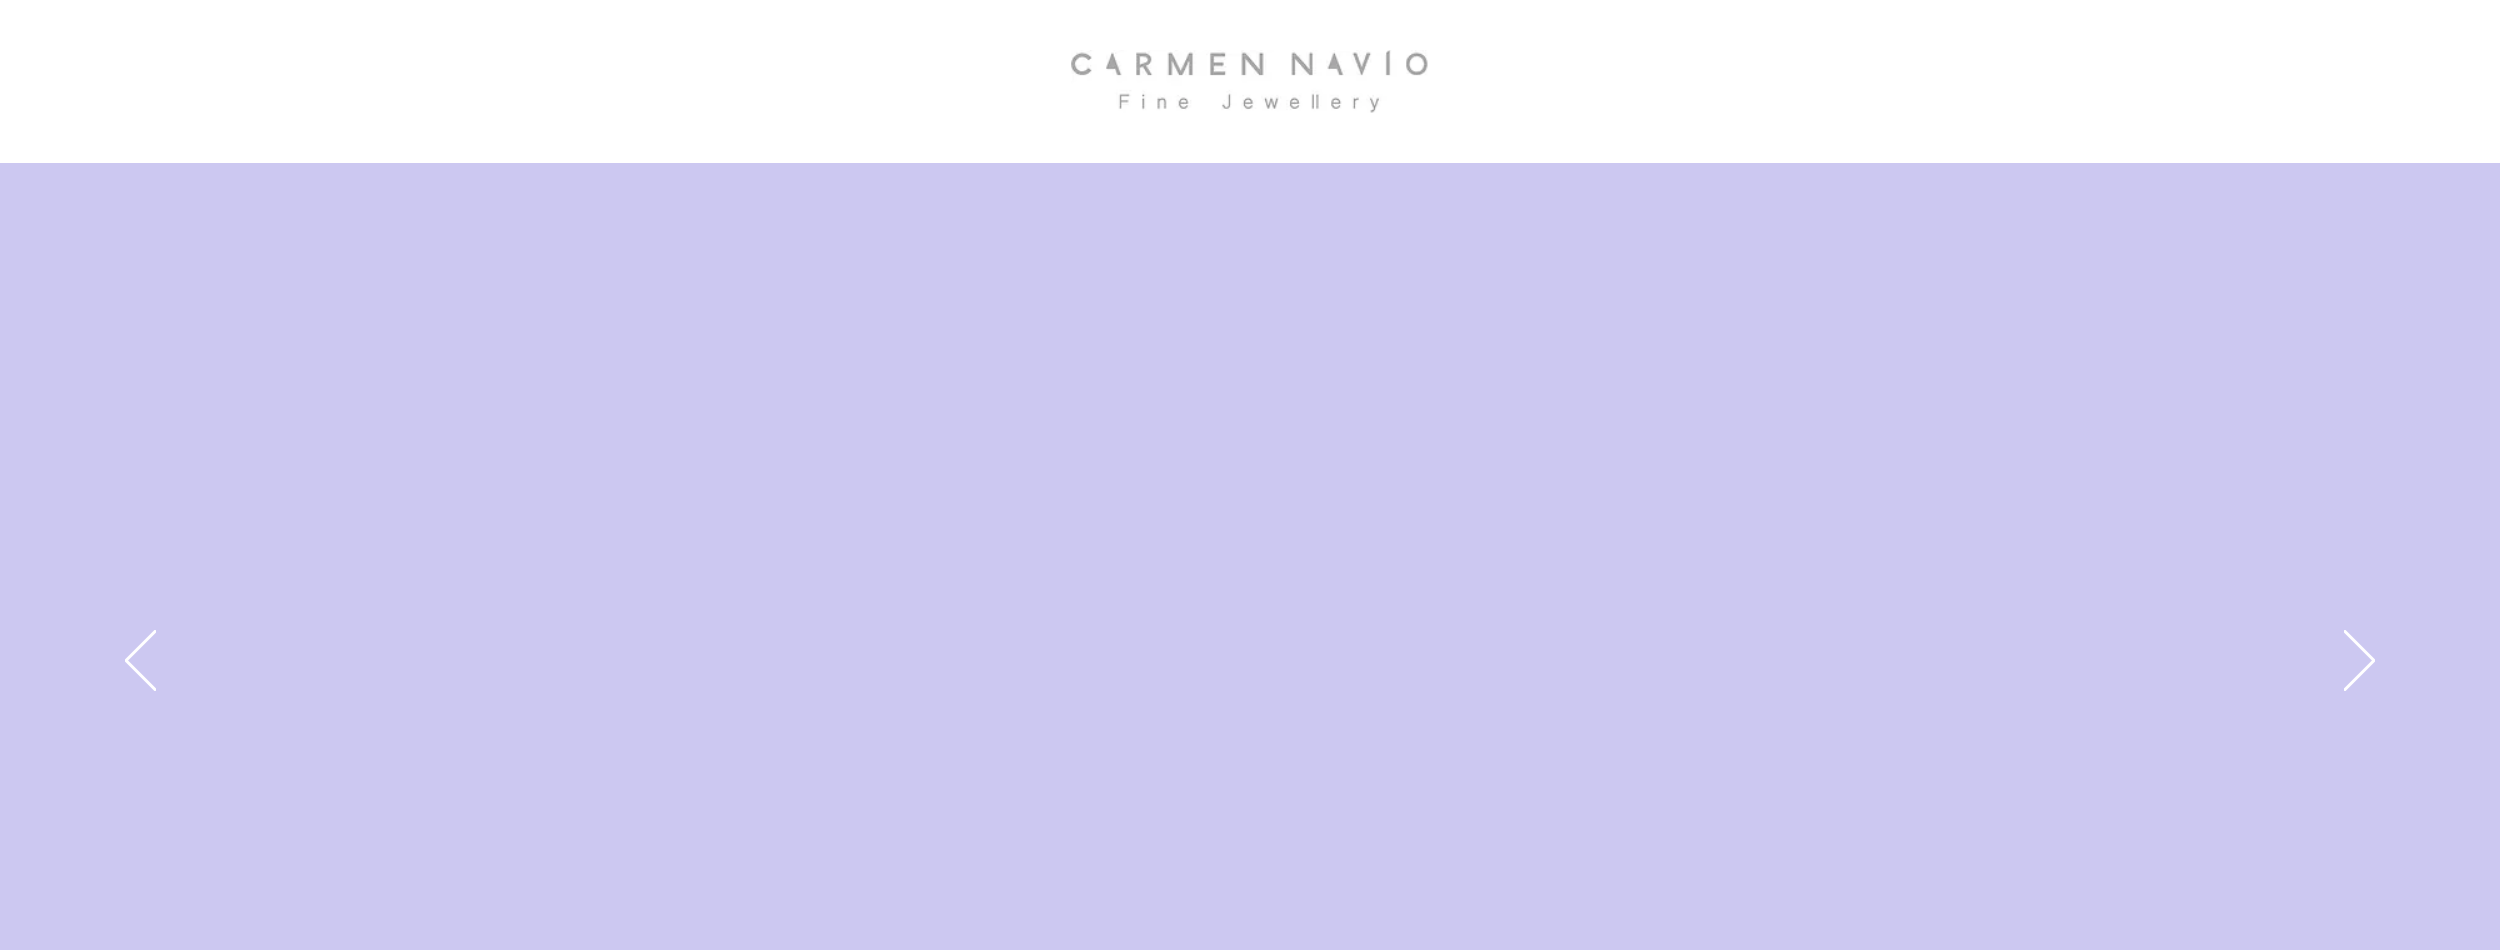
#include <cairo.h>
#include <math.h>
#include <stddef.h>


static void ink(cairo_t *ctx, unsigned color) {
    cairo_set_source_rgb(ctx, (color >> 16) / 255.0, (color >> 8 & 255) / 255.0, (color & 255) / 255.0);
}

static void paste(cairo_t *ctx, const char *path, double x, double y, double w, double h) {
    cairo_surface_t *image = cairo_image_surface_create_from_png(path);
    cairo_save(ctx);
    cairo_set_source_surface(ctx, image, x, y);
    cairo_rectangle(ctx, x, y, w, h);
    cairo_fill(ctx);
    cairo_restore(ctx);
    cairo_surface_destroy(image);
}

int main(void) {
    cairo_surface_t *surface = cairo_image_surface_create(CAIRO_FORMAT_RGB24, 2500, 950);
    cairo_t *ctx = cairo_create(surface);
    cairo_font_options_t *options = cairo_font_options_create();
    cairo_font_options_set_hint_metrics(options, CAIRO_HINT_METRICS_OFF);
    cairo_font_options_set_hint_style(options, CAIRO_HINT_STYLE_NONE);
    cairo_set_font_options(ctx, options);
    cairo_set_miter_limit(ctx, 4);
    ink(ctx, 0xFFFFFF);
    cairo_paint(ctx);
    paste(ctx, "media/1.png", 1071, 50, 357, 63);
    ink(ctx, 0xCCC8F1);
    cairo_rectangle(ctx, 0, 163, 2500, 787);
    cairo_fill(ctx);
    cairo_save(ctx);
    cairo_rectangle(ctx, 125, 630, 31, 61);
    cairo_clip(ctx);
    cairo_new_path(ctx);
    cairo_move_to(ctx, 155, 690.5);
    cairo_line_to(ctx, 125, 660.5);
    cairo_line_to(ctx, 155, 630.5);
    cairo_line_to(ctx, 156, 631.5);
    cairo_line_to(ctx, 127, 660.5);
    cairo_line_to(ctx, 156, 689.5);
    cairo_close_path(ctx);
    ink(ctx, 0xFFFFFF);
    cairo_set_line_width(ctx, 1.5);
    cairo_stroke(ctx);
    cairo_restore(ctx);
    cairo_save(ctx);
    cairo_rectangle(ctx, 2344, 630, 31, 61);
    cairo_clip(ctx);
    cairo_new_path(ctx);
    cairo_move_to(ctx, 2345, 690.5);
    cairo_line_to(ctx, 2375, 660.5);
    cairo_line_to(ctx, 2345, 630.5);
    cairo_line_to(ctx, 2344, 631.5);
    cairo_line_to(ctx, 2373, 660.5);
    cairo_line_to(ctx, 2344, 689.5);
    cairo_close_path(ctx);
    ink(ctx, 0xFFFFFF);
    cairo_set_line_width(ctx, 1.5);
    cairo_stroke(ctx);
    cairo_restore(ctx);
    cairo_surface_write_to_png(surface, "image.png");
    cairo_font_options_destroy(options);
    cairo_destroy(ctx);
    cairo_surface_destroy(surface);
    return 0;
}
